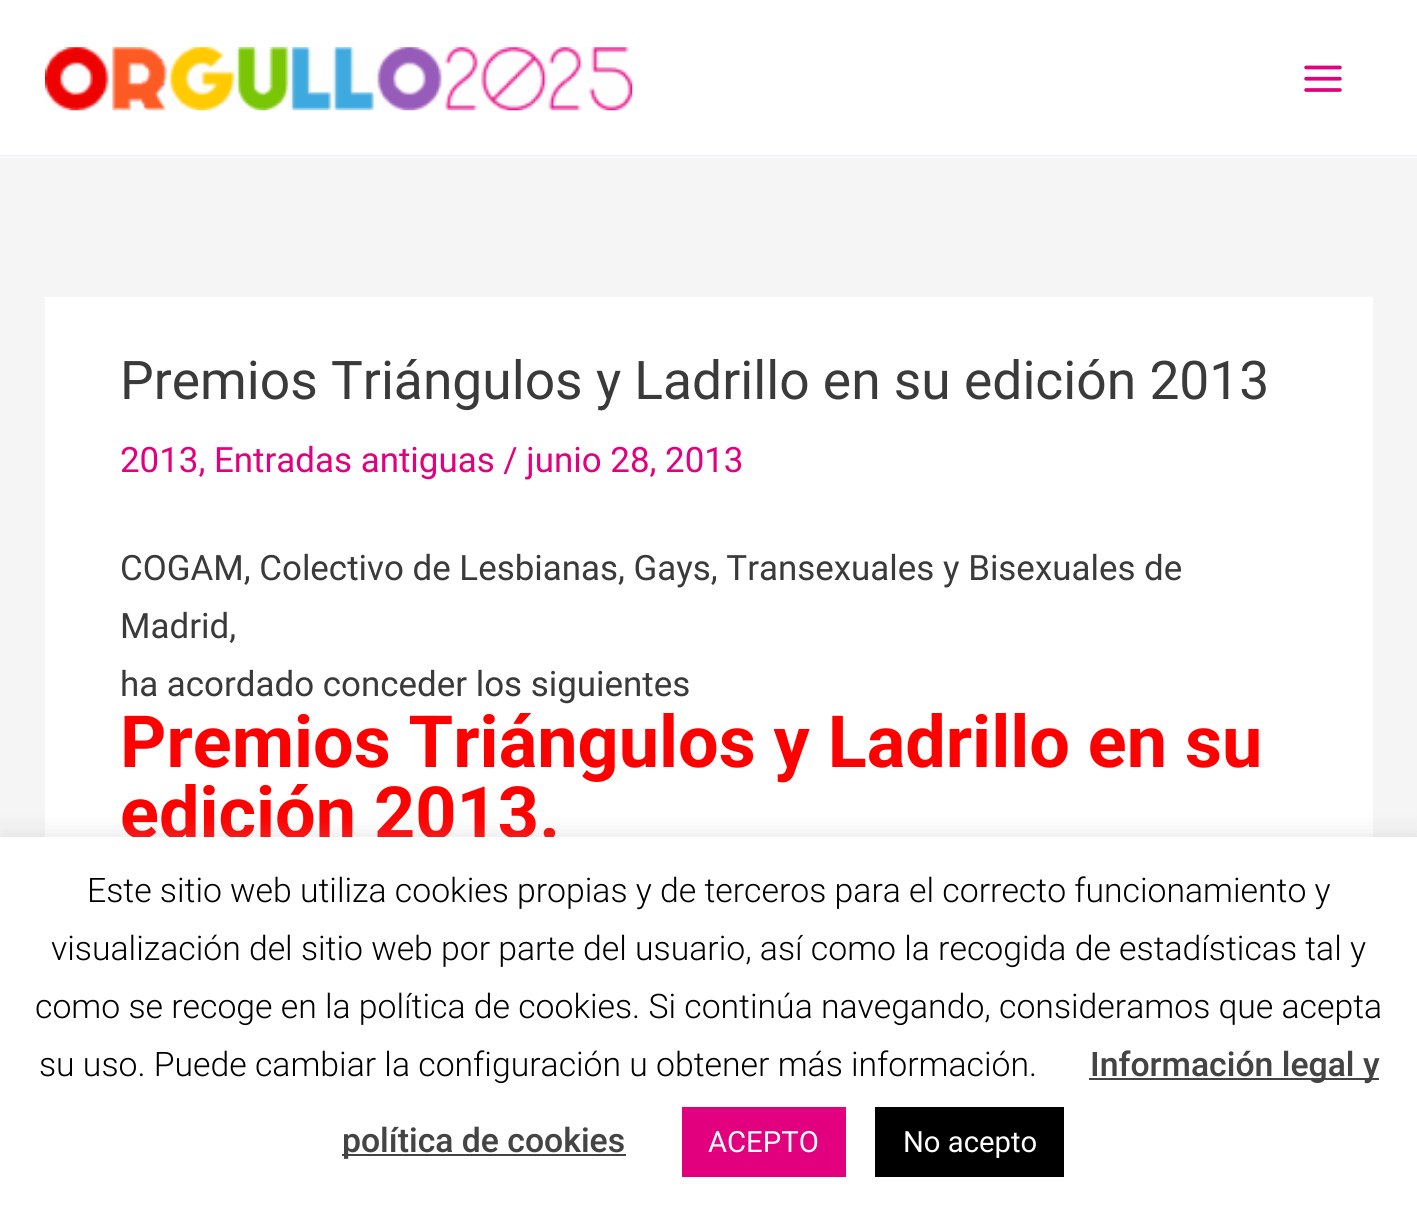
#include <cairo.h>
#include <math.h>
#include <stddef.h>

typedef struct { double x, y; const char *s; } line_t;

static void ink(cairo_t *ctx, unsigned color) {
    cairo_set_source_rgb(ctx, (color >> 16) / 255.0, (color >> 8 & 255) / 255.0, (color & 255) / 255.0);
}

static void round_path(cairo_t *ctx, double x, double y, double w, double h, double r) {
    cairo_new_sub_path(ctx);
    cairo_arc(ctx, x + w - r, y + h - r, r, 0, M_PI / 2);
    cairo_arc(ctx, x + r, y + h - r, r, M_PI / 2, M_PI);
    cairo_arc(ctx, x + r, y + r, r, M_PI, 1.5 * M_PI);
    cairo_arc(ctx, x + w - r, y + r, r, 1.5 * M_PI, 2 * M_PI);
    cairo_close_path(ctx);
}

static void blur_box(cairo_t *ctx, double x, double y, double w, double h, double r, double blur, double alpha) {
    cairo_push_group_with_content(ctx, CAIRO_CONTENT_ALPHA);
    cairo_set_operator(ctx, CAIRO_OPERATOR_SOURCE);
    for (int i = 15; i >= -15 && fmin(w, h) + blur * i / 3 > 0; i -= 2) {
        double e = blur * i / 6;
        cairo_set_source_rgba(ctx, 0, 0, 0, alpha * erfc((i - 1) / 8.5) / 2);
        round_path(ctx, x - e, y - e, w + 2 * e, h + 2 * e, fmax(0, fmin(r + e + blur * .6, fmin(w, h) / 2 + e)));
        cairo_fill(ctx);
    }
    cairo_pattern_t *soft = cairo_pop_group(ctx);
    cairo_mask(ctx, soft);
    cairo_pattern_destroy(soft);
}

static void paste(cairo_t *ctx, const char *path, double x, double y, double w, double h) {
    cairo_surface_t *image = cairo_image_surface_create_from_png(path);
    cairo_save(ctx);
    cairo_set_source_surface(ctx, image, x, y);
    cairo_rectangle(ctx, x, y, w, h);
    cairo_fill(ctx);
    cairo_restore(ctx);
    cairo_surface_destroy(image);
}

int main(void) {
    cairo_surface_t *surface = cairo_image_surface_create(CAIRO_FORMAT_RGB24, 1417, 1215);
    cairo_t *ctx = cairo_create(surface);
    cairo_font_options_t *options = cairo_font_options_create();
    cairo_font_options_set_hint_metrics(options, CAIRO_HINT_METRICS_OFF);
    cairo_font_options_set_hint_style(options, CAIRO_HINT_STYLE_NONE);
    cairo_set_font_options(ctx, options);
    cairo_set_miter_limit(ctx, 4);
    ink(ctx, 0xF5F5F5);
    cairo_paint(ctx);
    ink(ctx, 0xFFFFFF);
    cairo_rectangle(ctx, 0, 0, 1417, 158);
    cairo_fill(ctx);
    ink(ctx, 0xF2F5F7);
    cairo_rectangle(ctx, 0, 155, 1417, 2);
    cairo_fill(ctx);
    paste(ctx, "media/1.png", 45, 47, 588, 64);
    paste(ctx, "media/2.png", 1304, 65, 38, 27);
    ink(ctx, 0xFFFFFF);
    cairo_rectangle(ctx, 45, 297, 1328, 540);
    cairo_fill(ctx);
    cairo_select_font_face(ctx, "Roboto", CAIRO_FONT_SLANT_NORMAL, CAIRO_FONT_WEIGHT_NORMAL);
    cairo_set_font_size(ctx, 53.35);
    ink(ctx, 0x3A3A3A);
    cairo_move_to(ctx, 120, 399);
    cairo_show_text(ctx, "Premios Triángulos y Ladrillo en su edición 2013");
    cairo_set_font_size(ctx, 34.9);
    ink(ctx, 0xE2007E);
    cairo_move_to(ctx, 120, 472);
    cairo_show_text(ctx, "2013, Entradas antiguas / junio 28, 2013");
    ink(ctx, 0x3A3A3A);
    {
        static const line_t items[] = {
            {120, 580, "COGAM, Colectivo de Lesbianas, Gays, Transexuales y Bisexuales de"},
            {120, 638, "Madrid,"},
            {120, 696, "ha acordado conceder los siguientes"},
        };
        for (size_t i = 0; i < sizeof items / sizeof *items; i++) {
            cairo_move_to(ctx, items[i].x, items[i].y);
            cairo_show_text(ctx, items[i].s);
        }
    }
    cairo_select_font_face(ctx, "Roboto", CAIRO_FONT_SLANT_NORMAL, CAIRO_FONT_WEIGHT_BOLD);
    cairo_set_font_size(ctx, 72);
    ink(ctx, 0xFF0000);
    cairo_move_to(ctx, 120, 767);
    cairo_show_text(ctx, "Premios Triángulos y Ladrillo en su");
    cairo_move_to(ctx, 120, 838);
    cairo_show_text(ctx, "edición 2013.");
    ink(ctx, 0xACABAB);
    blur_box(ctx, 0, 835, 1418, 378, 0, 11, 0.3);
    ink(ctx, 0xFFFFFF);
    cairo_rectangle(ctx, 0, 837, 1417, 378);
    cairo_fill(ctx);
    cairo_select_font_face(ctx, "Roboto Light", CAIRO_FONT_SLANT_NORMAL, CAIRO_FONT_WEIGHT_NORMAL);
    cairo_set_font_size(ctx, 33.75);
    ink(ctx, 0x000000);
    {
        static const line_t items[] = {
            {87, 902, "Este sitio web utiliza cookies propias y de terceros para el correcto funcionamiento y"},
            {51, 960, "visualización del sitio web por parte del usuario, así como la recogida de estadísticas tal y"},
            {35, 1018, "como se recoge en la política de cookies. Si continúa navegando, consideramos que acepta"},
            {39, 1076, "su uso. Puede cambiar la configuración u obtener más información."},
        };
        for (size_t i = 0; i < sizeof items / sizeof *items; i++) {
            cairo_move_to(ctx, items[i].x, items[i].y);
            cairo_show_text(ctx, items[i].s);
        }
    }
    ink(ctx, 0x444444);
    cairo_rectangle(ctx, 1089, 1078, 290, 2);
    cairo_fill(ctx);
    cairo_select_font_face(ctx, "Roboto Medium", CAIRO_FONT_SLANT_NORMAL, CAIRO_FONT_WEIGHT_NORMAL);
    cairo_move_to(ctx, 1090, 1076);
    cairo_show_text(ctx, "Información legal y");
    cairo_rectangle(ctx, 342, 1154, 284, 2);
    cairo_fill(ctx);
    cairo_move_to(ctx, 342, 1152);
    cairo_show_text(ctx, "política de cookies");
    ink(ctx, 0xE2007E);
    cairo_rectangle(ctx, 682, 1107, 164, 70);
    cairo_fill(ctx);
    cairo_select_font_face(ctx, "Roboto", CAIRO_FONT_SLANT_NORMAL, CAIRO_FONT_WEIGHT_NORMAL);
    cairo_set_font_size(ctx, 29.25);
    ink(ctx, 0xFFFFFF);
    cairo_move_to(ctx, 708, 1152);
    cairo_show_text(ctx, "ACEPTO");
    ink(ctx, 0x000000);
    cairo_rectangle(ctx, 875, 1107, 189, 70);
    cairo_fill(ctx);
    ink(ctx, 0xFFFFFF);
    cairo_move_to(ctx, 903, 1152);
    cairo_show_text(ctx, "No acepto");
    cairo_surface_write_to_png(surface, "image.png");
    cairo_font_options_destroy(options);
    cairo_destroy(ctx);
    cairo_surface_destroy(surface);
    return 0;
}
